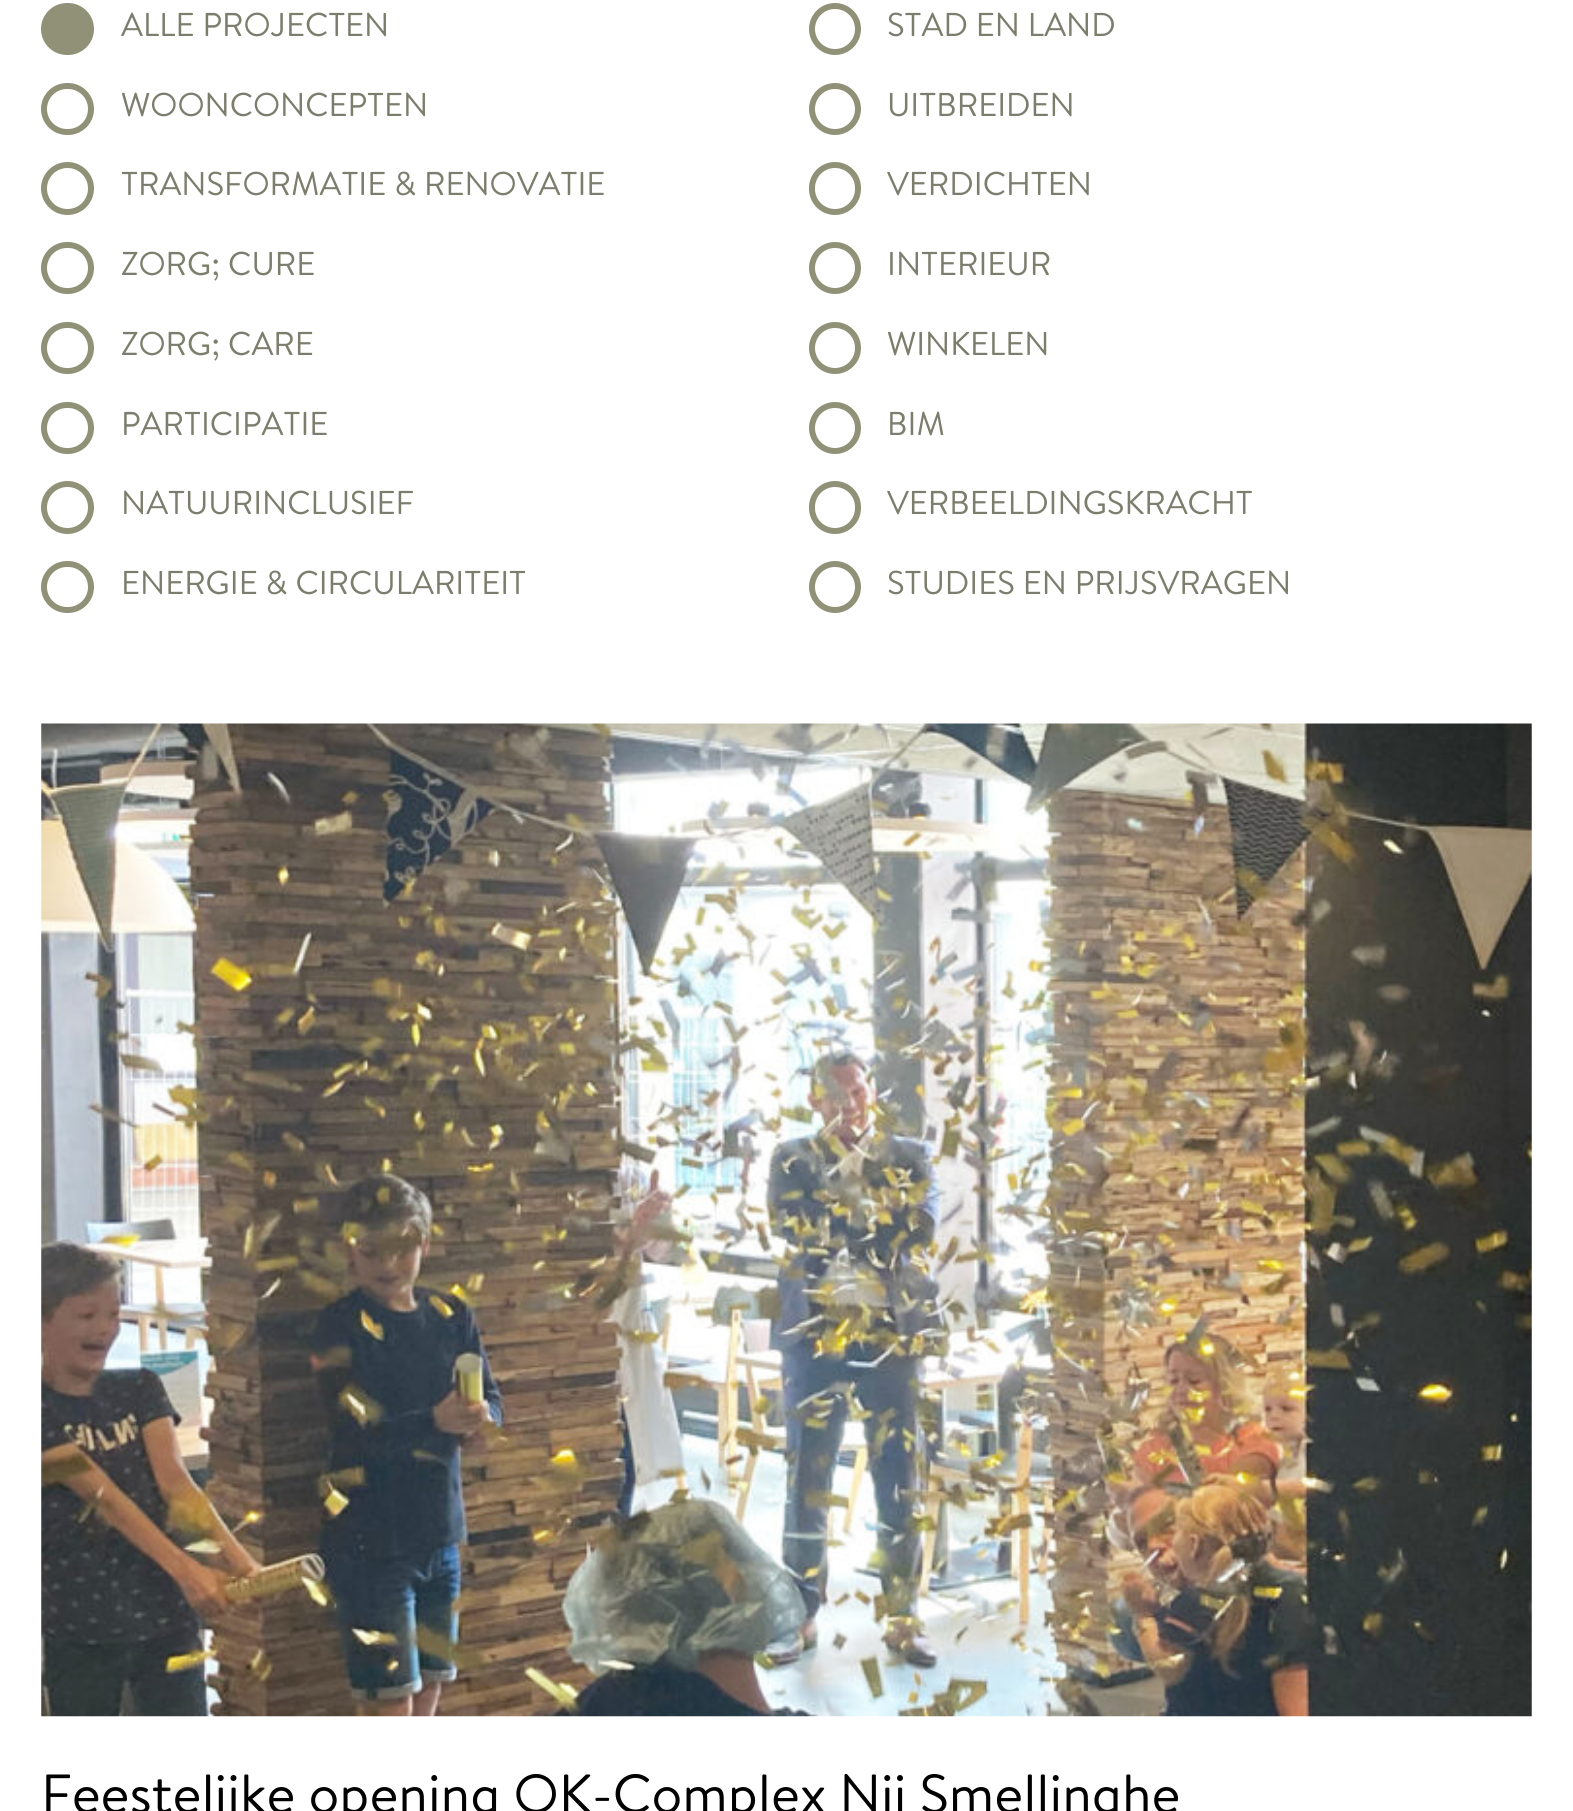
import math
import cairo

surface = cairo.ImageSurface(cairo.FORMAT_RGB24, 1573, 1811)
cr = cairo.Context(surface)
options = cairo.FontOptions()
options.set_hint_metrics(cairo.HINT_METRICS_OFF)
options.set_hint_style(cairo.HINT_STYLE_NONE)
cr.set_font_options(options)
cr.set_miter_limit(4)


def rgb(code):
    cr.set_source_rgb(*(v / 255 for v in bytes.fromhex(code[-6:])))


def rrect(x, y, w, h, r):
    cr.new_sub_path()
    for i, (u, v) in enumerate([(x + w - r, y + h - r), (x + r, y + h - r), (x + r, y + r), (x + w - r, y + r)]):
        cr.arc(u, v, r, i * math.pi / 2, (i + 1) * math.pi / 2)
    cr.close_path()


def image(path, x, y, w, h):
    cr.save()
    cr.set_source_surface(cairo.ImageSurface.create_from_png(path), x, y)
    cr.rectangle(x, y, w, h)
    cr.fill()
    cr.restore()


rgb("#ffffff")
cr.paint()
rgb("#919178")
rrect(44, 6, 47, 46, 23)
cr.fill_preserve()
cr.set_line_width(6)
cr.stroke()
cr.arc(835, 29, 23, 0, 2 * math.pi)
cr.stroke()
rrect(44, 86, 47, 46, 23)
cr.stroke()
cr.arc(835, 109, 23, 0, 2 * math.pi)
cr.stroke()
cr.arc(67.5, 188.5, 23.5, 0, 2 * math.pi)
cr.stroke()
rrect(812, 165, 46, 47, 23)
cr.stroke()
rrect(44, 245, 47, 46, 23)
cr.stroke()
cr.arc(835, 268, 23, 0, 2 * math.pi)
cr.stroke()
rrect(44, 325, 47, 46, 23)
cr.stroke()
cr.arc(835, 348, 23, 0, 2 * math.pi)
cr.stroke()
rrect(44, 405, 47, 46, 23)
cr.stroke()
cr.arc(835, 428, 23, 0, 2 * math.pi)
cr.stroke()
cr.arc(67.5, 507.5, 23.5, 0, 2 * math.pi)
cr.stroke()
rrect(812, 484, 46, 47, 23)
cr.stroke()
rrect(44, 564, 47, 46, 23)
cr.stroke()
cr.arc(835, 587, 23, 0, 2 * math.pi)
cr.stroke()
image("img/1.png", 41, 723, 1491, 994)
cr.select_font_face("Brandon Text")
cr.set_font_size(33)
rgb("#7d7d6e")
for x, y, s in [
    (121, 36, "ALLE PROJECTEN"),
    (887, 36, "STAD EN LAND"),
    (121, 116, "WOONCONCEPTEN"),
    (887, 116, "UITBREIDEN"),
    (121, 195, "TRANSFORMATIE & RENOVATIE"),
    (887, 195, "VERDICHTEN"),
    (121, 275, "ZORG; CURE"),
    (887, 275, "INTERIEUR"),
    (121, 355, "ZORG; CARE"),
    (887, 355, "WINKELEN"),
    (121, 435, "PARTICIPATIE"),
    (887, 435, "BIM"),
    (121, 514, "NATUURINCLUSIEF"),
    (887, 514, "VERBEELDINGSKRACHT"),
    (121, 594, "ENERGIE & CIRCULARITEIT"),
    (887, 594, "STUDIES EN PRIJSVRAGEN"),
]:
    cr.move_to(x, y)
    cr.show_text(s)
cr.set_font_size(55)
rgb("#000000")
cr.move_to(41, 1813)
cr.show_text("Feestelijke opening OK-Complex Nij Smellinghe")
surface.write_to_png("page.png")
